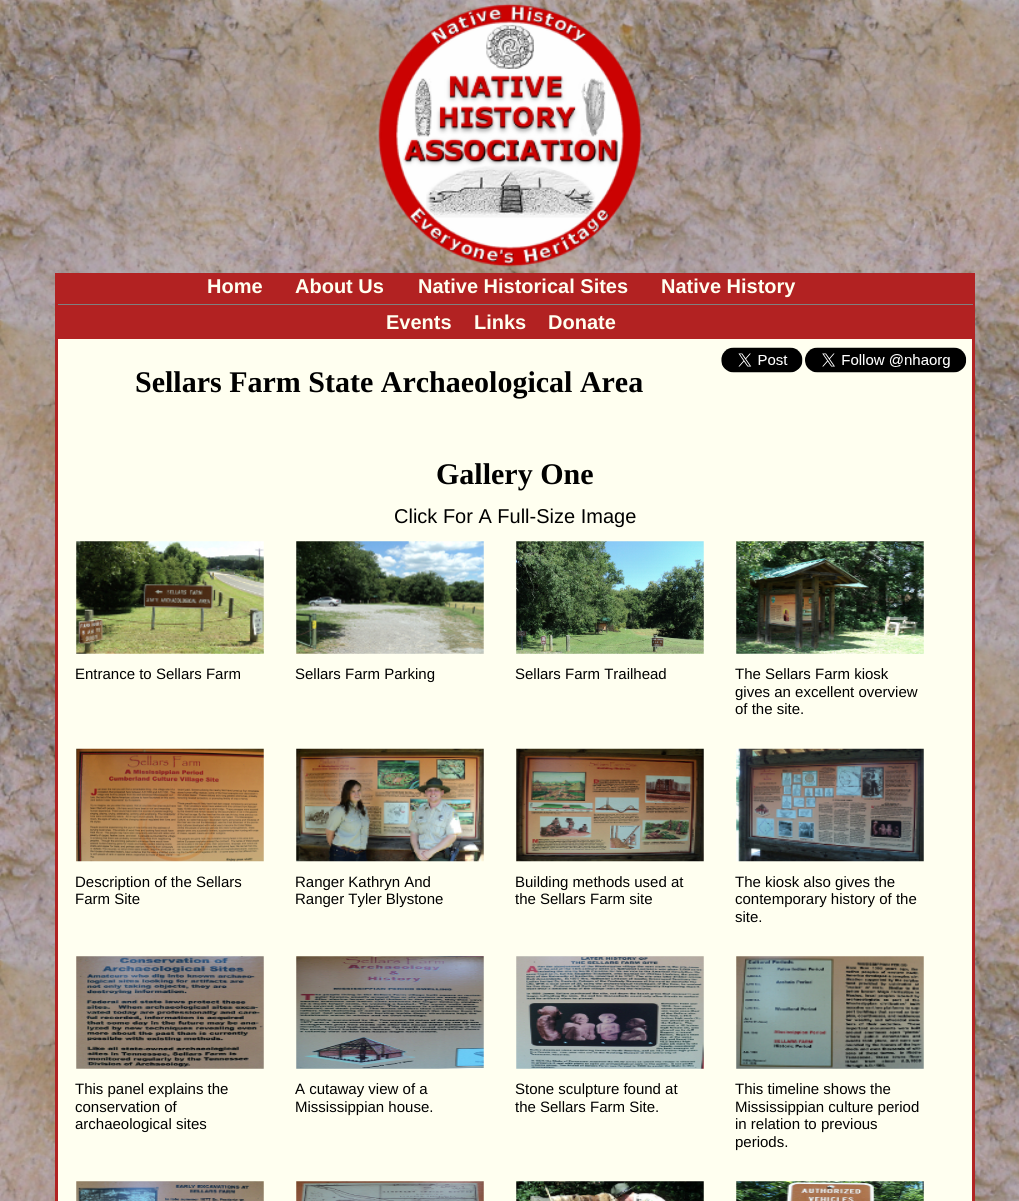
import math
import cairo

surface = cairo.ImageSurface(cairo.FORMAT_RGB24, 1019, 1201)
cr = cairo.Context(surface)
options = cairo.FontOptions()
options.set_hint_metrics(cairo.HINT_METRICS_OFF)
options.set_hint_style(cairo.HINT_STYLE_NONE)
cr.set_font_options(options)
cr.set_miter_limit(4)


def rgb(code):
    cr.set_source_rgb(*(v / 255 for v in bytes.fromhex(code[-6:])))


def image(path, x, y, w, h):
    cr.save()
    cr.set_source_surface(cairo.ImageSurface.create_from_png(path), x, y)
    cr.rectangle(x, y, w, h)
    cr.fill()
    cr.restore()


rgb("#ffffff")
cr.paint()
image("img/1.png", 0, 0, 1019, 1201)
image("img/2.png", 378, 3, 264, 264)
rgb("#b22222")
cr.rectangle(55, 273, 920, 63)
cr.fill()
rgb("#808080")
cr.rectangle(58, 304, 915, 1)
cr.fill()
rgb("#fffff0")
cr.rectangle(56.5, 337.5, 917, 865)
cr.fill_preserve()
rgb("#b22222")
cr.set_line_width(3)
cr.stroke()
image("img/3.png", 721, 347, 82, 26)
image("img/4.png", 805, 347, 162, 26)
image("img/5.png", 76, 541, 188, 113)
image("img/6.png", 296, 541, 188, 113)
image("img/7.png", 516, 541, 188, 113)
image("img/8.png", 736, 541, 188, 113)
image("img/9.png", 76, 748, 188, 114)
image("img/10.png", 296, 748, 188, 114)
image("img/11.png", 516, 748, 188, 114)
image("img/12.png", 736, 748, 188, 114)
image("img/13.png", 76, 956, 188, 113)
image("img/14.png", 296, 956, 188, 113)
image("img/15.png", 516, 956, 188, 113)
image("img/16.png", 736, 956, 188, 113)
image("img/17.png", 76, 1181, 188, 20)
image("img/18.png", 296, 1181, 188, 20)
image("img/19.png", 516, 1181, 188, 20)
image("img/20.png", 736, 1181, 188, 20)
cr.select_font_face("Liberation Sans", cairo.FONT_SLANT_NORMAL, cairo.FONT_WEIGHT_BOLD)
cr.set_font_size(20)
rgb("#fffff0")
for x, y, s in [
    (207, 293, "Home"),
    (295, 293, "About Us"),
    (418, 293, "Native Historical Sites"),
    (661, 293, "Native History"),
    (386, 329, "Events"),
    (474, 329, "Links"),
    (548, 329, "Donate"),
]:
    cr.move_to(x, y)
    cr.show_text(s)
cr.select_font_face("Liberation Serif", cairo.FONT_SLANT_NORMAL, cairo.FONT_WEIGHT_BOLD)
cr.set_font_size(30)
rgb("#000000")
cr.move_to(135, 392)
cr.show_text("Sellars Farm State Archaeological Area")
cr.move_to(436, 484)
cr.show_text("Gallery One")
cr.select_font_face("Liberation Sans")
cr.set_font_size(20)
cr.move_to(394, 523)
cr.show_text("Click For A Full-Size Image")
cr.set_font_size(15)
for x, y, s in [
    (75, 679, "Entrance to Sellars Farm"),
    (295, 679, "Sellars Farm Parking"),
    (515, 679, "Sellars Farm Trailhead"),
    (735, 679, "The Sellars Farm kiosk"),
    (735, 697, "gives an excellent overview"),
    (735, 714, "of the site."),
    (75, 887, "Description of the Sellars"),
    (75, 904, "Farm Site"),
    (295, 887, "Ranger Kathryn And"),
    (295, 904, "Ranger Tyler Blystone"),
    (515, 887, "Building methods used at"),
    (515, 904, "the Sellars Farm site"),
    (735, 887, "The kiosk also gives the"),
    (735, 904, "contemporary history of the"),
    (735, 922, "site."),
    (75, 1094, "This panel explains the"),
    (75, 1112, "conservation of"),
    (75, 1129, "archaeological sites"),
    (295, 1094, "A cutaway view of a"),
    (295, 1112, "Mississippian house."),
    (515, 1094, "Stone sculpture found at"),
    (515, 1112, "the Sellars Farm Site."),
    (735, 1094, "This timeline shows the"),
    (735, 1112, "Mississippian culture period"),
    (735, 1129, "in relation to previous"),
    (735, 1147, "periods."),
]:
    cr.move_to(x, y)
    cr.show_text(s)
surface.write_to_png("page.png")
